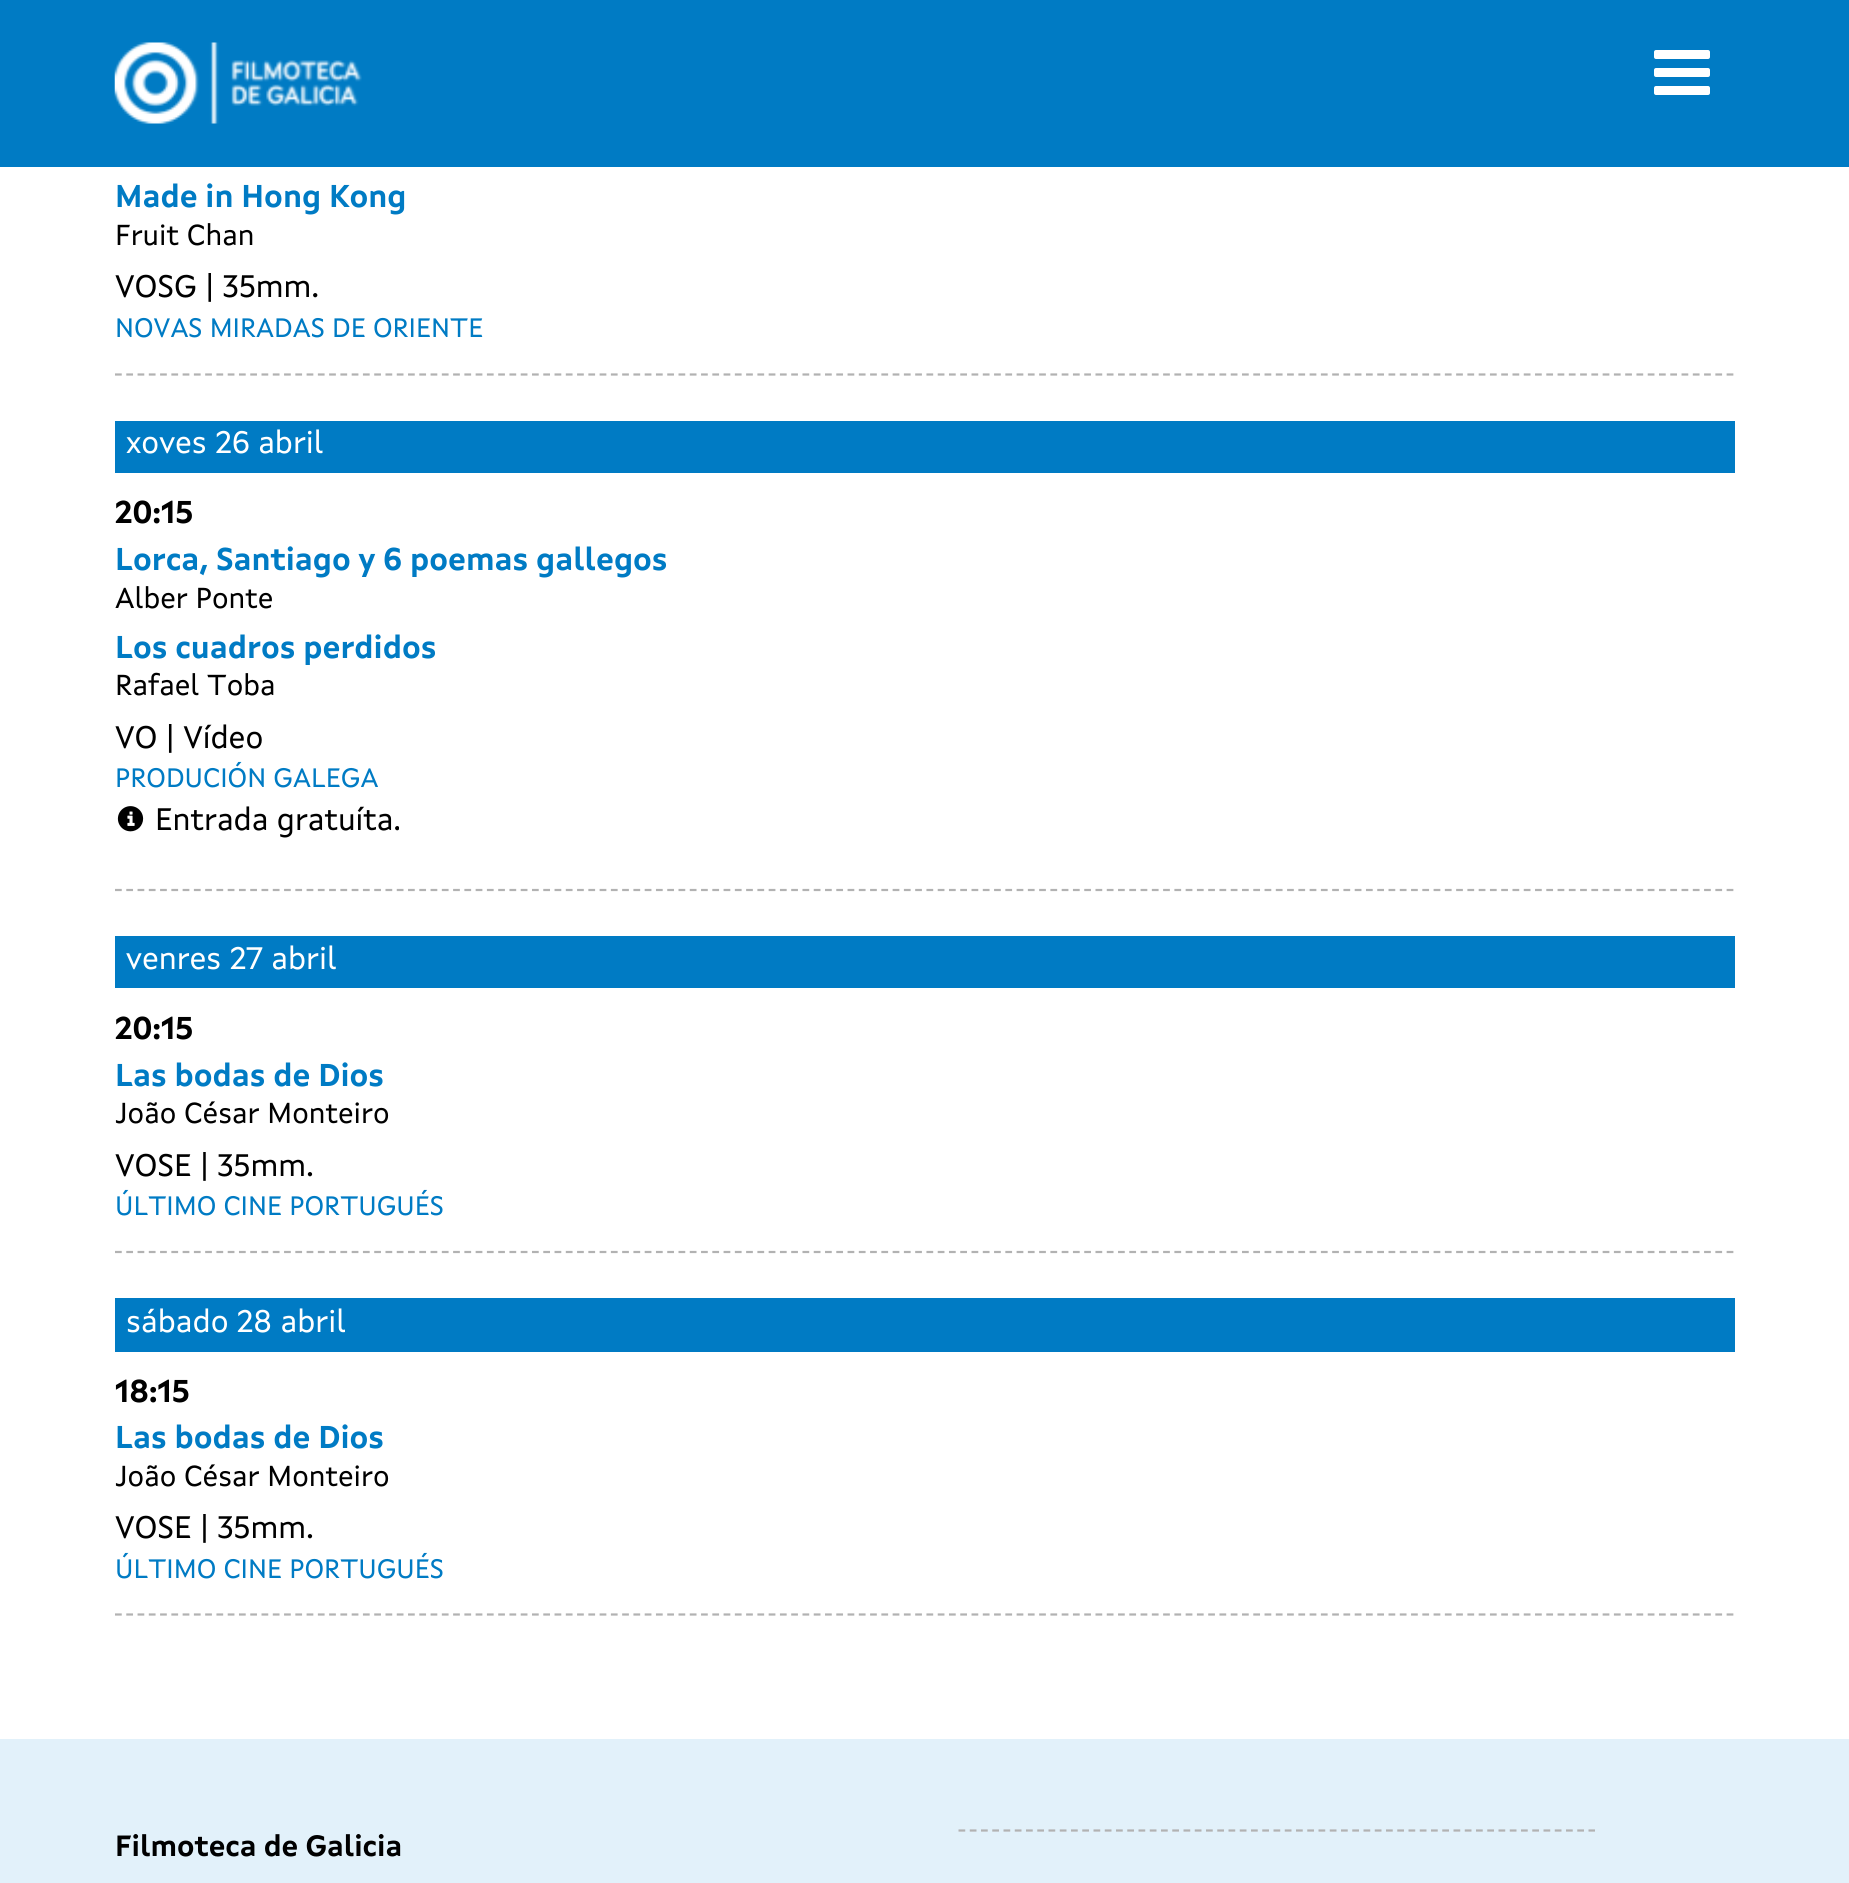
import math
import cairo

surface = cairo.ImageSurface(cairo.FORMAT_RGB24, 1849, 1883)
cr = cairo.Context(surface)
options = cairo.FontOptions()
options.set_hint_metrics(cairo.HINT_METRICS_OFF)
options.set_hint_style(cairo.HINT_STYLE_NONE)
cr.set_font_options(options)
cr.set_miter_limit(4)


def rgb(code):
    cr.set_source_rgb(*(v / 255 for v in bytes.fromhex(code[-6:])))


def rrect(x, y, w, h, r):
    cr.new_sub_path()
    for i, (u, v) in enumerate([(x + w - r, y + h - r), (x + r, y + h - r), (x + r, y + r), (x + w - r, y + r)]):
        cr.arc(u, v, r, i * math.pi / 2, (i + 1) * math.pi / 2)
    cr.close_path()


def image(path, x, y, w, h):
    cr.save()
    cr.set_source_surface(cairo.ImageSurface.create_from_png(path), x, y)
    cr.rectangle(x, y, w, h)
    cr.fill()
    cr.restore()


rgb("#ffffff")
cr.paint()
rgb("#007bc4")
cr.rectangle(0, 0, 1849, 167)
cr.fill()
image("img/1.png", 114, 42, 248, 82)
rgb("#ffffff")
rrect(1654, 50, 56, 9, 2)
cr.fill()
rrect(1654, 68, 56, 9, 2)
cr.fill()
rrect(1654, 86, 56, 9, 2)
cr.fill()
cr.new_path()
cr.move_to(115, 374.5)
cr.line_to(1735, 374.5)
rgb("#b2b2b2")
cr.set_line_width(2.2)
cr.set_dash([6.75, 4.52])
cr.stroke()
rgb("#007bc4")
cr.rectangle(115, 421, 1620, 52)
cr.fill()
cr.new_path()
cr.move_to(115, 890)
cr.line_to(1735, 890)
rgb("#b2b2b2")
cr.stroke()
image("img/2.png", 117, 806, 27, 26)
rgb("#007bc4")
cr.rectangle(115, 936, 1620, 52)
cr.fill()
cr.new_path()
cr.move_to(115, 1252)
cr.line_to(1735, 1252)
rgb("#b2b2b2")
cr.stroke()
rgb("#007bc4")
cr.rectangle(115, 1298, 1620, 54)
cr.fill()
cr.new_path()
cr.move_to(115, 1614.5)
cr.line_to(1735, 1614.5)
rgb("#b2b2b2")
cr.stroke()
rgb("#e2f1fa")
cr.rectangle(0, 1739, 1849, 144)
cr.fill()
cr.new_path()
cr.move_to(958.5, 1830.5)
cr.line_to(1595, 1830.5)
rgb("#b2b2b2")
cr.set_dash([6.75, 4.5])
cr.stroke()
cr.select_font_face("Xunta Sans", cairo.FONT_SLANT_NORMAL, cairo.FONT_WEIGHT_BOLD)
cr.set_font_size(31.5)
rgb("#007bc4")
cr.move_to(115, 207)
cr.show_text("Made in Hong Kong")
cr.select_font_face("Xunta Sans")
cr.set_font_size(29.25)
rgb("#000000")
cr.move_to(115, 245)
cr.show_text("Fruit Chan")
cr.set_font_size(31.5)
cr.move_to(115, 297)
cr.show_text("VOSG | 35mm.")
cr.set_font_size(27)
rgb("#007bc4")
cr.move_to(115, 337)
cr.show_text("NOVAS MIRADAS DE ORIENTE")
cr.set_font_size(31.5)
rgb("#ffffff")
cr.move_to(126, 453)
cr.show_text("xoves 26 abril")
cr.select_font_face("Xunta Sans", cairo.FONT_SLANT_NORMAL, cairo.FONT_WEIGHT_BOLD)
rgb("#000000")
cr.move_to(115, 523)
cr.show_text("20:15")
rgb("#007bc4")
cr.move_to(115, 570)
cr.show_text("Lorca, Santiago y 6 poemas gallegos")
cr.select_font_face("Xunta Sans")
cr.set_font_size(29.25)
rgb("#000000")
cr.move_to(115, 608)
cr.show_text("Alber Ponte")
cr.select_font_face("Xunta Sans", cairo.FONT_SLANT_NORMAL, cairo.FONT_WEIGHT_BOLD)
cr.set_font_size(31.5)
rgb("#007bc4")
cr.move_to(115, 658)
cr.show_text("Los cuadros perdidos")
cr.select_font_face("Xunta Sans")
cr.set_font_size(29.25)
rgb("#000000")
cr.move_to(115, 695)
cr.show_text("Rafael Toba")
cr.set_font_size(31.5)
cr.move_to(115, 748)
cr.show_text("VO | Vídeo")
cr.set_font_size(27)
rgb("#007bc4")
cr.move_to(115, 787)
cr.show_text("PRODUCIÓN GALEGA")
cr.set_font_size(31.5)
rgb("#000000")
cr.move_to(155, 830)
cr.show_text("Entrada gratuíta.")
rgb("#ffffff")
cr.move_to(126, 969)
cr.show_text("venres 27 abril")
cr.select_font_face("Xunta Sans", cairo.FONT_SLANT_NORMAL, cairo.FONT_WEIGHT_BOLD)
rgb("#000000")
cr.move_to(115, 1039)
cr.show_text("20:15")
rgb("#007bc4")
cr.move_to(115, 1086)
cr.show_text("Las bodas de Dios")
cr.select_font_face("Xunta Sans")
cr.set_font_size(29.25)
rgb("#000000")
cr.move_to(115, 1123)
cr.show_text("João César Monteiro")
cr.set_font_size(31.5)
cr.move_to(115, 1176)
cr.show_text("VOSE | 35mm.")
cr.set_font_size(27)
rgb("#007bc4")
cr.move_to(115, 1215)
cr.show_text("ÚLTIMO CINE PORTUGUÉS")
cr.set_font_size(31.5)
rgb("#ffffff")
cr.move_to(126, 1332)
cr.show_text("sábado 28 abril")
cr.select_font_face("Xunta Sans", cairo.FONT_SLANT_NORMAL, cairo.FONT_WEIGHT_BOLD)
rgb("#000000")
cr.move_to(115, 1402)
cr.show_text("18:15")
rgb("#007bc4")
cr.move_to(115, 1448)
cr.show_text("Las bodas de Dios")
cr.select_font_face("Xunta Sans")
cr.set_font_size(29.25)
rgb("#000000")
cr.move_to(115, 1486)
cr.show_text("João César Monteiro")
cr.set_font_size(31.5)
cr.move_to(115, 1538)
cr.show_text("VOSE | 35mm.")
cr.set_font_size(27)
rgb("#007bc4")
cr.move_to(115, 1578)
cr.show_text("ÚLTIMO CINE PORTUGUÉS")
cr.select_font_face("Xunta Sans", cairo.FONT_SLANT_NORMAL, cairo.FONT_WEIGHT_BOLD)
cr.set_font_size(29.25)
rgb("#000000")
cr.move_to(115, 1856)
cr.show_text("Filmoteca de Galicia")
surface.write_to_png("page.png")
